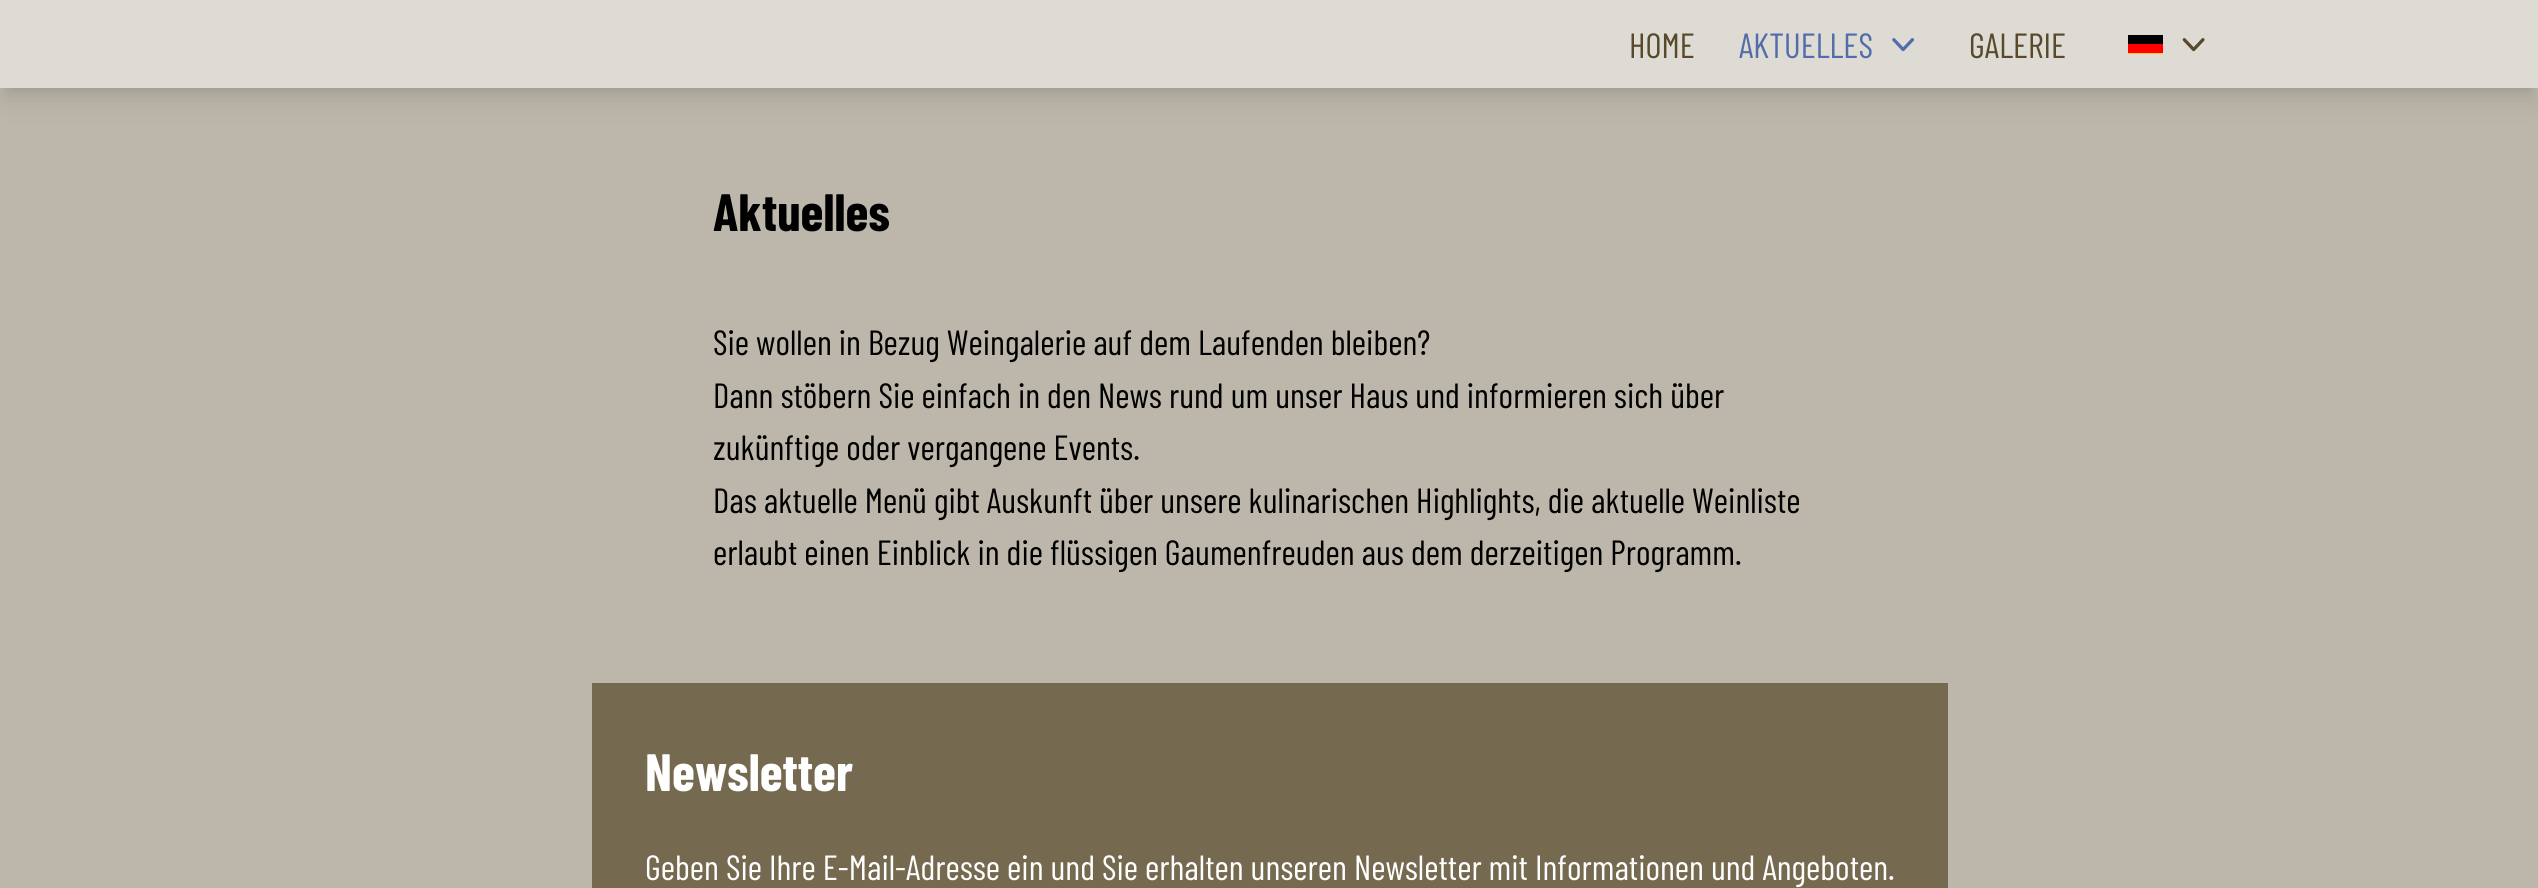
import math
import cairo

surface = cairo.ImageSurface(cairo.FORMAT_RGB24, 2538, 888)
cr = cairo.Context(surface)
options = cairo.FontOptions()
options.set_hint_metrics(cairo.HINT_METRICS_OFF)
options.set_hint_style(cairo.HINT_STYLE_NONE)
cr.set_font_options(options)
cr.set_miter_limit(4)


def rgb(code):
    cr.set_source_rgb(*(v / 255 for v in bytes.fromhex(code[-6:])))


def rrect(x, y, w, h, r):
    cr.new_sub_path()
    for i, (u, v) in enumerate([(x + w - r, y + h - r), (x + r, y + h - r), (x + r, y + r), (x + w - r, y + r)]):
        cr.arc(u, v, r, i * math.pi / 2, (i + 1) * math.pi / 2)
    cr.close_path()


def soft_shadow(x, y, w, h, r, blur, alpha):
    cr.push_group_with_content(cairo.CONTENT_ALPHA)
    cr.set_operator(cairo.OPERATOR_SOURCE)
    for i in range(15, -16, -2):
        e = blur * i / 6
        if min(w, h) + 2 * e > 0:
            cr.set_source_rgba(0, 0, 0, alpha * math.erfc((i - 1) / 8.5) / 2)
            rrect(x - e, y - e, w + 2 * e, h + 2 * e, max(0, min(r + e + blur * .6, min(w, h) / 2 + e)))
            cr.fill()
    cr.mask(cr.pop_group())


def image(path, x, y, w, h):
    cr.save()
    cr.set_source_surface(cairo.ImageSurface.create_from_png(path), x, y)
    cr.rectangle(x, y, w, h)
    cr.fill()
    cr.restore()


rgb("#bcb7aa")
cr.paint()
rgb("#000000")
soft_shadow(7, 14, 2525, 74, 0, 5, 0.1)
soft_shadow(5, 23, 2529, 77, 0, 13, 0.1)
rgb("#dedbd5")
cr.rectangle(0, 0, 2538, 88)
cr.fill()
image("img/1.png", 1892, 38, 23, 14)
for x, y, w, h, color in [
    (2128, 53, 35, 1, "#ffcc00"),
    (2128, 35, 35, 9, "#000001"),
    (2128, 44, 35, 9, "#ff0000"),
]:
    rgb(color)
    cr.rectangle(x, y, w, h)
    cr.fill()
image("img/2.png", 2182, 38, 23, 14)
rgb("#756a50")
cr.rectangle(592, 683, 1356, 205)
cr.fill()
cr.select_font_face("Barlow Condensed")
cr.set_font_size(35)
rgb("#57492a")
cr.move_to(1629, 58)
cr.show_text("HOME")
rgb("#526da9")
cr.move_to(1739, 58)
cr.show_text("AKTUELLES")
rgb("#57492a")
cr.move_to(1969, 58)
cr.show_text("GALERIE")
cr.select_font_face("Barlow Condensed", cairo.FONT_SLANT_NORMAL, cairo.FONT_WEIGHT_BOLD)
cr.set_font_size(52.5)
rgb("#000000")
cr.move_to(713, 231)
cr.show_text("Aktuelles")
cr.select_font_face("Barlow Condensed")
cr.set_font_size(35)
for x, y, s in [
    (713, 355, "Sie wollen in Bezug Weingalerie auf dem Laufenden bleiben?"),
    (713, 408, "Dann stöbern Sie einfach in den News rund um unser Haus und informieren sich über"),
    (713, 460, "zukünftige oder vergangene Events."),
    (713, 513, "Das aktuelle Menü gibt Auskunft über unsere kulinarischen Highlights, die aktuelle Weinliste"),
    (713, 565, "erlaubt einen Einblick in die flüssigen Gaumenfreuden aus dem derzeitigen Programm."),
]:
    cr.move_to(x, y)
    cr.show_text(s)
cr.select_font_face("Barlow Condensed", cairo.FONT_SLANT_NORMAL, cairo.FONT_WEIGHT_BOLD)
cr.set_font_size(52.5)
rgb("#ffffff")
cr.move_to(645, 791)
cr.show_text("Newsletter")
cr.select_font_face("Barlow Condensed")
cr.set_font_size(35)
cr.move_to(645, 880)
cr.show_text("Geben Sie Ihre E-Mail-Adresse ein und Sie erhalten unseren Newsletter mit Informationen und Angeboten.")
surface.write_to_png("page.png")
